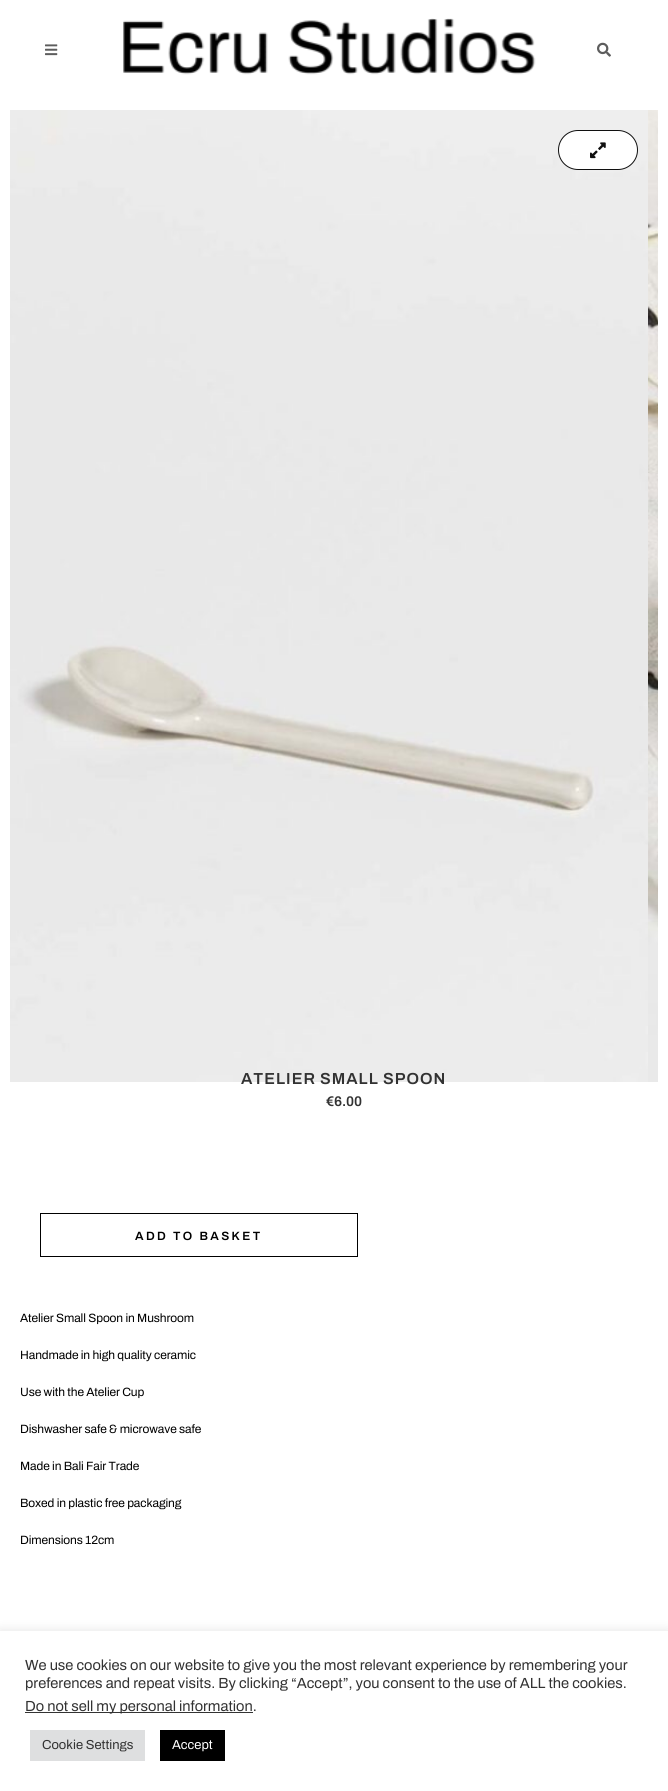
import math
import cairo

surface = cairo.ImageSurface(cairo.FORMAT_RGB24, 668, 1791)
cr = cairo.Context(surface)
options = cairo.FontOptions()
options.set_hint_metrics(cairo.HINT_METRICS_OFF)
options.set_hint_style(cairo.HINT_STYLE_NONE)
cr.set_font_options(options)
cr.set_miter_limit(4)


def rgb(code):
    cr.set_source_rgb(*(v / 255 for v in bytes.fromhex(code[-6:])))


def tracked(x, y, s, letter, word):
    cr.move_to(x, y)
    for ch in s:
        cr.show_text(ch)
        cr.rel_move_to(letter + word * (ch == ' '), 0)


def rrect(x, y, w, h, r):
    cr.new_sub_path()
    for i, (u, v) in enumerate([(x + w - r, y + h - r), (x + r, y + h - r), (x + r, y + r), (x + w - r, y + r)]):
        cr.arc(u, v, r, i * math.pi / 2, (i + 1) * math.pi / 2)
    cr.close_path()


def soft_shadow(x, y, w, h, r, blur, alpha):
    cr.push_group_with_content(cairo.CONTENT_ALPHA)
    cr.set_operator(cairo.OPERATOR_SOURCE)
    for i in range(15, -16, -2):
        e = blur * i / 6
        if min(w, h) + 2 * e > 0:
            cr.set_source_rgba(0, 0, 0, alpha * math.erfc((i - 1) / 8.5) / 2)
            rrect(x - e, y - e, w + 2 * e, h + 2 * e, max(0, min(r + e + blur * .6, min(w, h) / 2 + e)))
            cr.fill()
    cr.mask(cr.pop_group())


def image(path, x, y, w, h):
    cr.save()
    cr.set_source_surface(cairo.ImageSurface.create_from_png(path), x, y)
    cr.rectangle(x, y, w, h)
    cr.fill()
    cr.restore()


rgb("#ffffff")
cr.paint()
image("img/1.png", 45, 44, 13, 12)
image("img/2.png", 123, 18, 413, 57)
image("img/3.png", 597, 42, 14, 15)
image("img/4.png", 10, 110, 638, 972)
image("img/5.png", 648, 110, 10, 972)
rgb("#ffffff")
rrect(558.5, 130.5, 79, 39, 19.5)
cr.fill_preserve()
rgb("#101010")
cr.set_line_width(1)
cr.stroke()
image("img/6.png", 590, 142, 16, 17)
cr.rectangle(40.5, 1213.5, 317, 43)
rgb("#000000")
cr.stroke()
rgb("#acabab")
soft_shadow(0, 1630, 668, 160, 0, 5, 0.3)
for x, y, w, h, color in [
    (0, 1631, 668, 160, "#ffffff"),
    (25, 1712, 228, 1, "#333333"),
    (30, 1730, 115, 31, "#dedfe0"),
    (160, 1730, 65, 31, "#000000"),
]:
    rgb(color)
    cr.rectangle(x, y, w, h)
    cr.fill()
cr.select_font_face("Archivo SemiBold")
cr.set_font_size(16)
rgb("#323232")
tracked(241, 1084, "ATELIER SMALL SPOON", 1, 0)
cr.set_font_size(14)
tracked(326, 1106, "€6.00", -0.1, 0)
cr.set_font_size(12)
rgb("#000000")
tracked(135, 1240, "ADD TO BASKET", 2.4, 0)
cr.select_font_face("Archivo")
for x, y, s in [
    (20, 1322, "Atelier Small Spoon in Mushroom"),
    (20, 1359, "Handmade in high quality ceramic"),
    (20, 1396, "Use with the Atelier Cup"),
    (20, 1433, "Dishwasher safe & microwave safe"),
    (20, 1470, "Made in Bali Fair Trade"),
    (20, 1507, "Boxed in plastic free packaging"),
    (20, 1544, "Dimensions 12cm"),
]:
    tracked(x, y, s, -0.1, 0)
cr.set_font_size(14.65)
rgb("#323232")
for x, y, s in [
    (25, 1670, "We use cookies on our website to give you the most relevant experience by remembering your"),
    (25, 1688, "preferences and repeat visits. By clicking “Accept”, you consent to the use of ALL the cookies."),
    (25, 1711, "Do not sell my personal information."),
]:
    cr.move_to(x, y)
    cr.show_text(s)
cr.set_font_size(13)
cr.move_to(42, 1749)
cr.show_text("Cookie Settings")
rgb("#ffffff")
cr.move_to(172, 1749)
cr.show_text("Accept")
surface.write_to_png("page.png")
